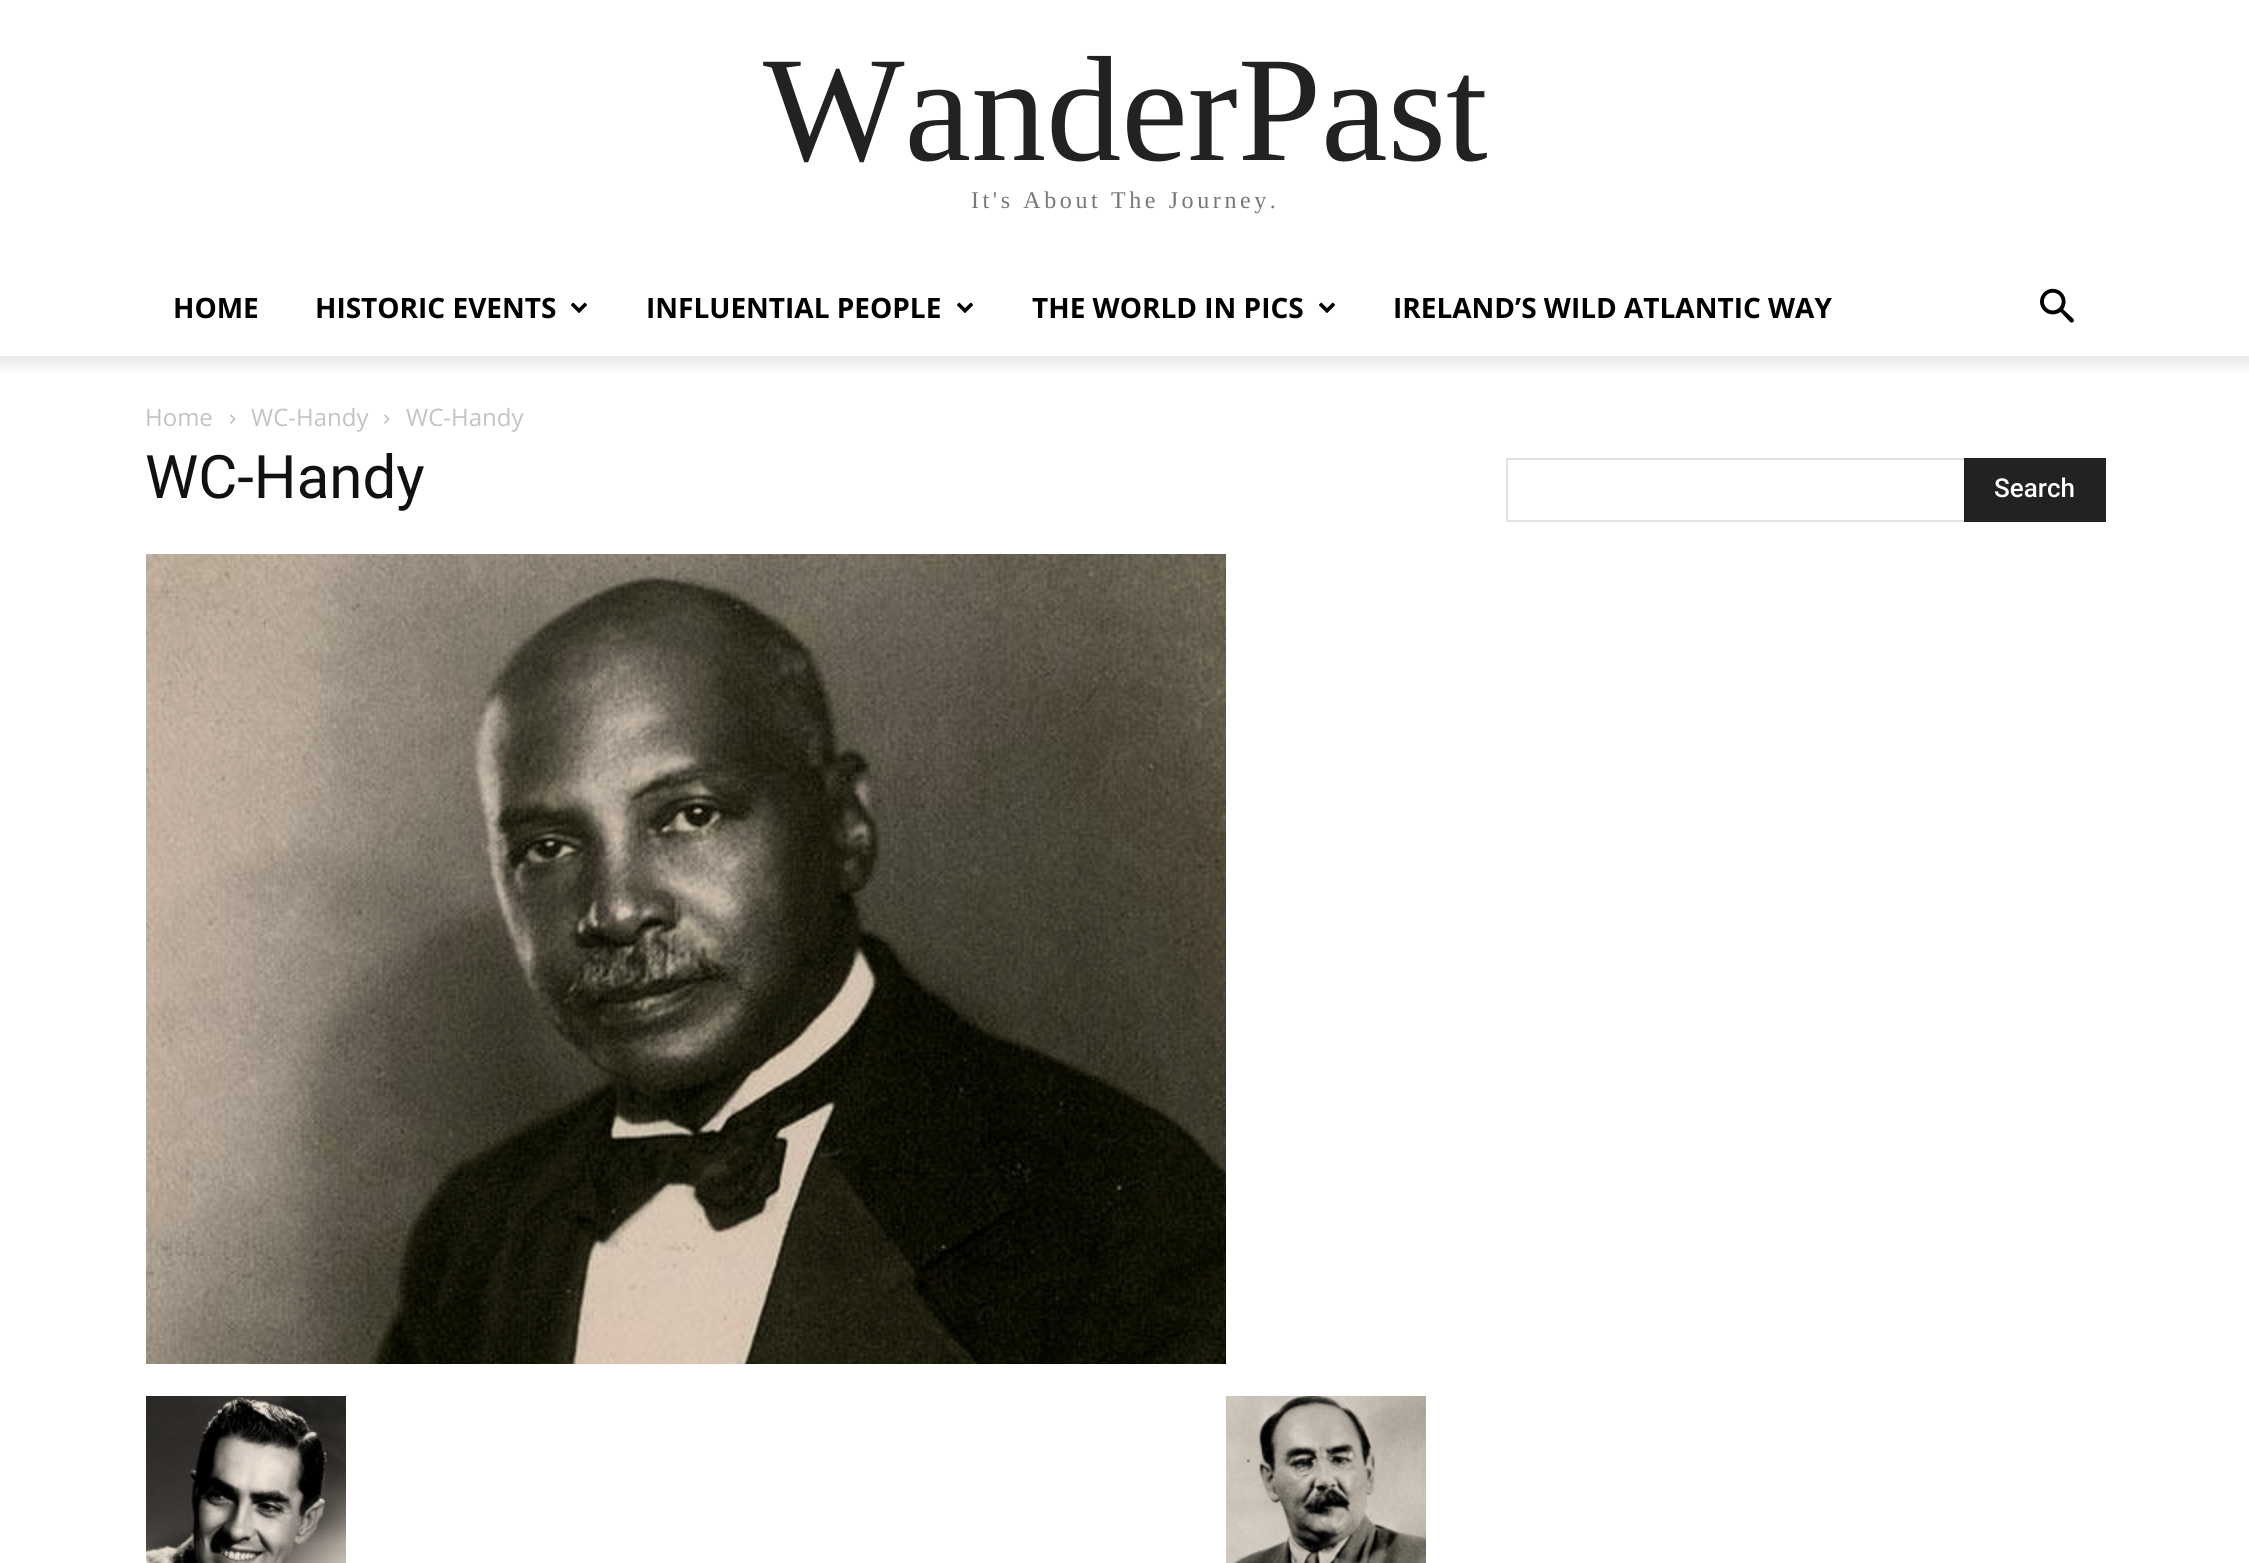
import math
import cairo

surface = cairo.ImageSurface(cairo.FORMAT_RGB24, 2249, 1563)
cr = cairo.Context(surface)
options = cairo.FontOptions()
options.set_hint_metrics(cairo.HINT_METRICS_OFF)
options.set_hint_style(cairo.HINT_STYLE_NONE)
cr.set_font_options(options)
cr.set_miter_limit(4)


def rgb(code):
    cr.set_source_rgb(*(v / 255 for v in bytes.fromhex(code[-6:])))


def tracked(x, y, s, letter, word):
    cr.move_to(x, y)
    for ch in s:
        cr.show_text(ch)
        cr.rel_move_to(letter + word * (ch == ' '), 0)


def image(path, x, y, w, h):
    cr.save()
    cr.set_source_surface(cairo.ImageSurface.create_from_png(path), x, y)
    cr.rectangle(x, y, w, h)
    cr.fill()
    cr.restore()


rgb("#ffffff")
cr.paint()
image("img/1.png", 571, 302, 16, 11)
image("img/1.png", 957, 302, 16, 11)
image("img/1.png", 1319, 302, 16, 11)
image("img/2.png", 2040, 288, 34, 35)
image("img/3.png", 0, 356, 2249, 17)
image("img/4.png", 230, 414, 6, 10)
image("img/4.png", 384, 414, 6, 10)
image("img/5.png", 146, 554, 1080, 810)
image("img/6.png", 146, 1396, 200, 167)
image("img/7.png", 1226, 1396, 200, 167)
for x, y, w, h, color in [
    (1506, 458, 458, 2, "#e1e1e1"),
    (1506, 520, 458, 2, "#e1e1e1"),
    (1506, 458, 2, 64, "#e1e1e1"),
    (1964, 458, 142, 64, "#222222"),
]:
    rgb(color)
    cr.rectangle(x, y, w, h)
    cr.fill()
cr.select_font_face("Liberation Serif")
cr.set_font_size(150)
cr.move_to(763, 160)
cr.show_text("WanderPast")
cr.set_font_size(24)
rgb("#777777")
tracked(971, 208, "It's About The Journey.", 3.6, 0)
cr.select_font_face("Open Sans", cairo.FONT_SLANT_NORMAL, cairo.FONT_WEIGHT_BOLD)
cr.set_font_size(28)
rgb("#000000")
for x, y, s in [
    (173, 318, "HOME"),
    (315, 318, "HISTORIC EVENTS"),
    (646, 318, "INFLUENTIAL PEOPLE"),
    (1032, 318, "THE WORLD IN PICS"),
    (1393, 318, "IRELAND’S WILD ATLANTIC WAY"),
]:
    cr.move_to(x, y)
    cr.show_text(s)
cr.select_font_face("Open Sans")
cr.set_font_size(24)
rgb("#c3c3c3")
for x, y, s in [
    (145, 426, "Home"),
    (251, 426, "WC-Handy"),
    (406, 426, "WC-Handy"),
]:
    cr.move_to(x, y)
    cr.show_text(s)
cr.select_font_face("Roboto")
cr.set_font_size(60)
rgb("#111111")
cr.move_to(145, 498)
cr.show_text("WC-Handy")
cr.select_font_face("Roboto Medium")
cr.set_font_size(26)
rgb("#ffffff")
cr.move_to(1994, 497)
cr.show_text("Search")
surface.write_to_png("page.png")
